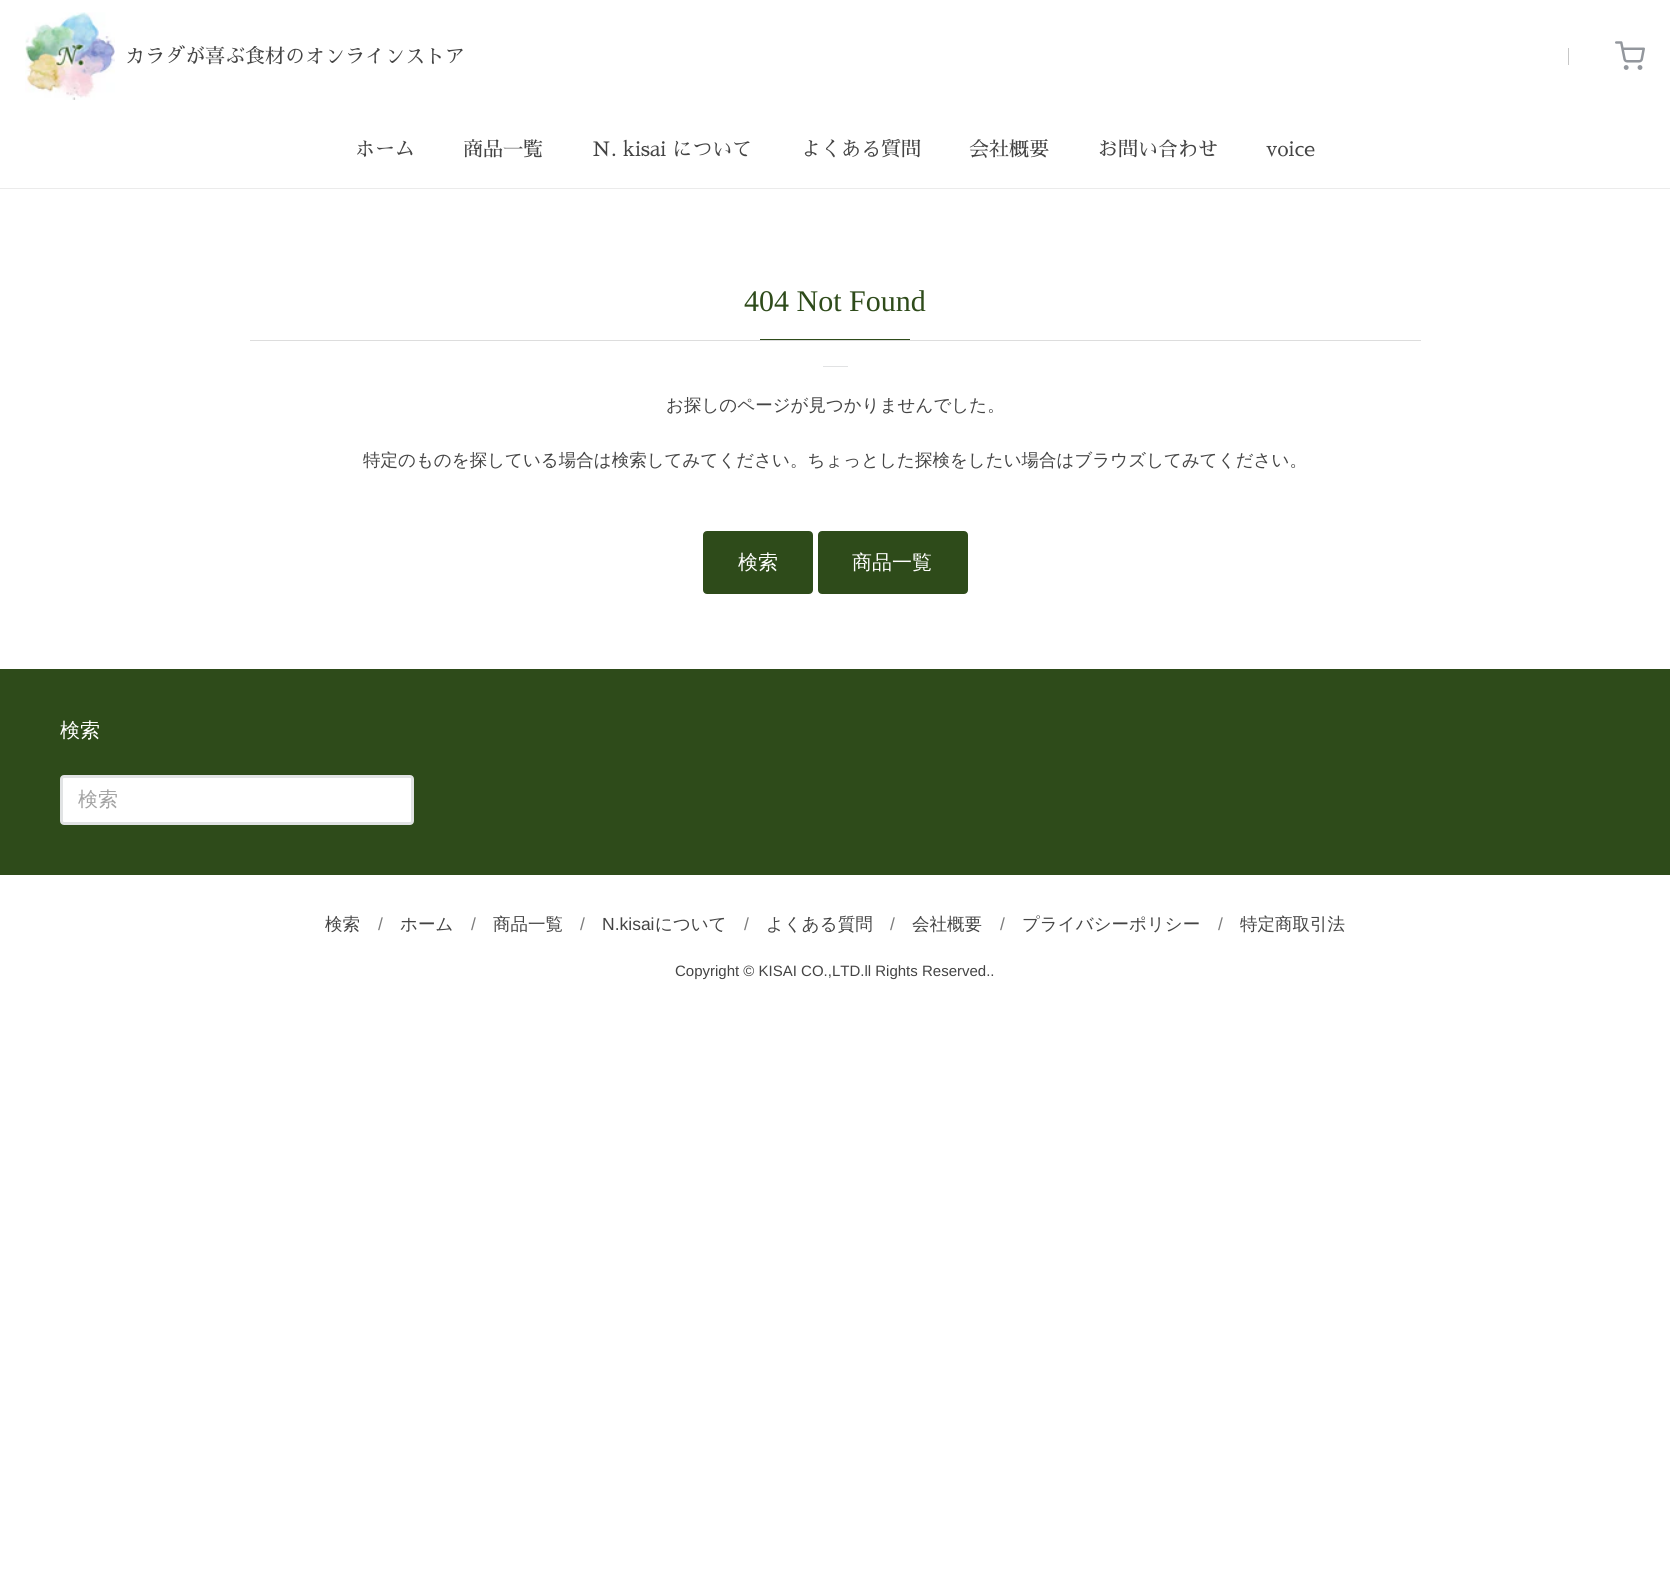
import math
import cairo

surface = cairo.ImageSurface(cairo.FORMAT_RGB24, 1670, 1583)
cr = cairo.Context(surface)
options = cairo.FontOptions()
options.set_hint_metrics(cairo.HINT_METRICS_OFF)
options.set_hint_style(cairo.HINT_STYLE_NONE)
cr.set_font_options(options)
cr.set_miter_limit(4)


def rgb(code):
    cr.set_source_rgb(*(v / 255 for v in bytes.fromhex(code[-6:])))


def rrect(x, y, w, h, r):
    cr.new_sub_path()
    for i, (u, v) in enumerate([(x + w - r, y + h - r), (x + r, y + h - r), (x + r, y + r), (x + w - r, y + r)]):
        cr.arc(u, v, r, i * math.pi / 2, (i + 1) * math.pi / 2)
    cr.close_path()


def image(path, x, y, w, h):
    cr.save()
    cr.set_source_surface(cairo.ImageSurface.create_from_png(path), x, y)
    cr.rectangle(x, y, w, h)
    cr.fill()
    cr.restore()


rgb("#ffffff")
cr.paint()
rgb("#ebebeb")
cr.rectangle(0, 188, 1670, 1)
cr.fill()
image("img/1.png", 25, 12, 90, 88)
rgb("#c7c7c7")
cr.rectangle(1568, 48, 1, 17)
cr.fill()
image("img/2.png", 1615, 41, 30, 29)
for x, y, w, h, color in [
    (250, 340, 1171, 1, "#dddddd"),
    (760, 339, 150, 1, "#2e4b1a"),
    (823, 366, 25, 1, "#e1e2e3"),
]:
    rgb(color)
    cr.rectangle(x, y, w, h)
    cr.fill()
rgb("#2e4b1a")
rrect(704.5, 532.5, 107, 60, 2.5)
cr.fill_preserve()
cr.set_line_width(3)
cr.stroke()
rrect(819.5, 532.5, 147, 60, 2.5)
cr.fill_preserve()
cr.stroke()
cr.rectangle(0, 669, 1670, 206)
cr.fill()
rgb("#ffffff")
rrect(61.5, 776.5, 351, 47, 2.5)
cr.fill_preserve()
rgb("#e1e3e4")
cr.stroke()
cr.select_font_face("Sawarabi Mincho")
cr.set_font_size(20)
rgb("#444444")
for x, y, s in [
    (125, 63, "カラダが喜ぶ食材のオンラインストア"),
    (355, 156, "ホーム"),
    (463, 156, "商品一覧"),
    (592, 156, "N. kisai について"),
    (801, 156, "よくある質問"),
    (969, 156, "会社概要"),
    (1098, 156, "お問い合わせ"),
    (1266, 156, "voice"),
]:
    cr.move_to(x, y)
    cr.show_text(s)
cr.select_font_face("Liberation Serif")
cr.set_font_size(30)
rgb("#2e4b1a")
cr.move_to(744, 311)
cr.show_text("404 Not Found")
cr.select_font_face("WenQuanYi Zen Hei Medium")
cr.set_font_size(17.5)
rgb("#444444")
cr.move_to(666, 411)
cr.show_text("お探しのページが見つかりませんでした。")
cr.move_to(363, 466)
cr.show_text("特定のものを探している場合は検索してみてください。ちょっとした探検をしたい場合はブラウズしてみてください。")
cr.set_font_size(20)
rgb("#ffffff")
for x, y, s in [
    (738, 569, "検索"),
    (852, 569, "商品一覧"),
    (60, 737, "検索"),
]:
    cr.move_to(x, y)
    cr.show_text(s)
rgb("#a2a2a2")
cr.move_to(78, 806)
cr.show_text("検索")
cr.set_font_size(17.5)
rgb("#444444")
cr.move_to(325, 930)
cr.show_text("検索")
cr.select_font_face("Liberation Sans")
rgb("#7c7c7c")
cr.move_to(378, 930)
cr.show_text("/")
cr.select_font_face("WenQuanYi Zen Hei Medium")
rgb("#444444")
cr.move_to(400, 930)
cr.show_text("ホーム")
cr.select_font_face("Liberation Sans")
rgb("#7c7c7c")
cr.move_to(471, 930)
cr.show_text("/")
cr.select_font_face("WenQuanYi Zen Hei Medium")
rgb("#444444")
cr.move_to(493, 930)
cr.show_text("商品一覧")
cr.select_font_face("Liberation Sans")
rgb("#7c7c7c")
cr.move_to(580, 930)
cr.show_text("/")
rgb("#444444")
cr.move_to(602, 930)
cr.show_text("N.kisai")
cr.select_font_face("WenQuanYi Zen Hei Medium")
cr.move_to(655, 930)
cr.show_text("について")
cr.select_font_face("Liberation Sans")
rgb("#7c7c7c")
cr.move_to(744, 930)
cr.show_text("/")
cr.select_font_face("WenQuanYi Zen Hei Medium")
rgb("#444444")
cr.move_to(766, 930)
cr.show_text("よくある質問")
cr.select_font_face("Liberation Sans")
rgb("#7c7c7c")
cr.move_to(890, 930)
cr.show_text("/")
cr.select_font_face("WenQuanYi Zen Hei Medium")
rgb("#444444")
cr.move_to(912, 930)
cr.show_text("会社概要")
cr.select_font_face("Liberation Sans")
rgb("#7c7c7c")
cr.move_to(1000, 930)
cr.show_text("/")
cr.select_font_face("WenQuanYi Zen Hei Medium")
rgb("#444444")
cr.move_to(1022, 930)
cr.show_text("プライバシーポリシー")
cr.select_font_face("Liberation Sans")
rgb("#7c7c7c")
cr.move_to(1218, 930)
cr.show_text("/")
cr.select_font_face("WenQuanYi Zen Hei Medium")
rgb("#444444")
cr.move_to(1240, 930)
cr.show_text("特定商取引法")
cr.select_font_face("Liberation Sans")
cr.set_font_size(15)
cr.move_to(675, 976)
cr.show_text("Copyright © KISAI CO.,LTD.ll Rights Reserved..")
surface.write_to_png("page.png")
